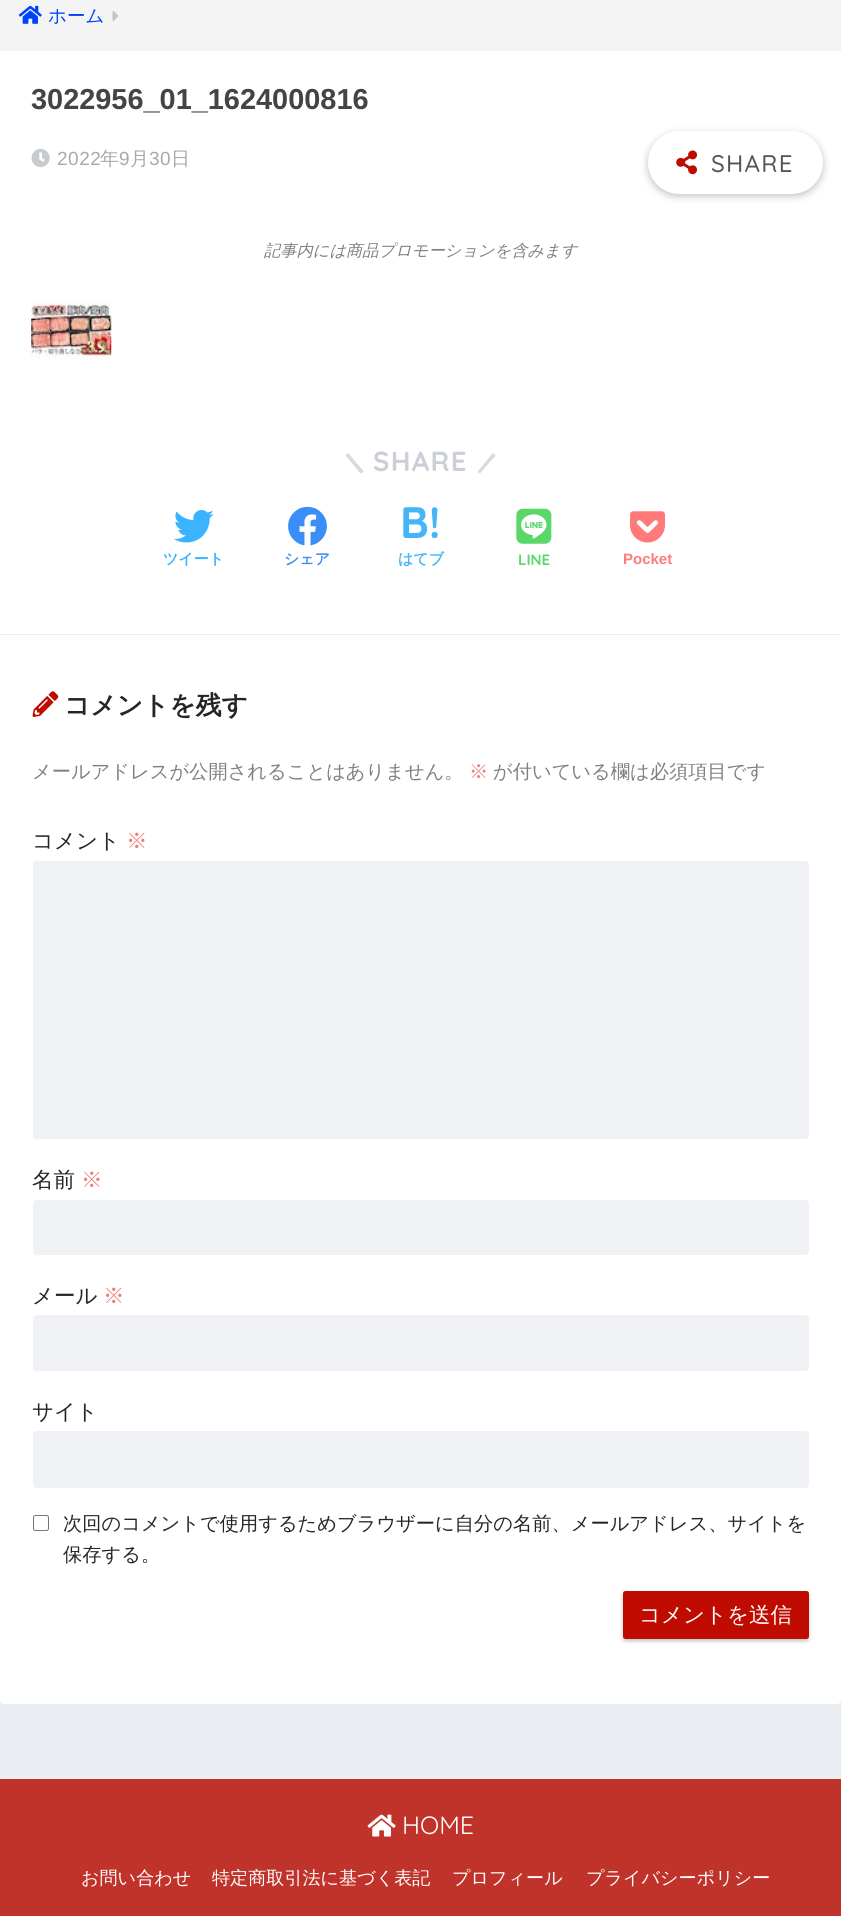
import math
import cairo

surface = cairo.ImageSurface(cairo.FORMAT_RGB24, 841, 1916)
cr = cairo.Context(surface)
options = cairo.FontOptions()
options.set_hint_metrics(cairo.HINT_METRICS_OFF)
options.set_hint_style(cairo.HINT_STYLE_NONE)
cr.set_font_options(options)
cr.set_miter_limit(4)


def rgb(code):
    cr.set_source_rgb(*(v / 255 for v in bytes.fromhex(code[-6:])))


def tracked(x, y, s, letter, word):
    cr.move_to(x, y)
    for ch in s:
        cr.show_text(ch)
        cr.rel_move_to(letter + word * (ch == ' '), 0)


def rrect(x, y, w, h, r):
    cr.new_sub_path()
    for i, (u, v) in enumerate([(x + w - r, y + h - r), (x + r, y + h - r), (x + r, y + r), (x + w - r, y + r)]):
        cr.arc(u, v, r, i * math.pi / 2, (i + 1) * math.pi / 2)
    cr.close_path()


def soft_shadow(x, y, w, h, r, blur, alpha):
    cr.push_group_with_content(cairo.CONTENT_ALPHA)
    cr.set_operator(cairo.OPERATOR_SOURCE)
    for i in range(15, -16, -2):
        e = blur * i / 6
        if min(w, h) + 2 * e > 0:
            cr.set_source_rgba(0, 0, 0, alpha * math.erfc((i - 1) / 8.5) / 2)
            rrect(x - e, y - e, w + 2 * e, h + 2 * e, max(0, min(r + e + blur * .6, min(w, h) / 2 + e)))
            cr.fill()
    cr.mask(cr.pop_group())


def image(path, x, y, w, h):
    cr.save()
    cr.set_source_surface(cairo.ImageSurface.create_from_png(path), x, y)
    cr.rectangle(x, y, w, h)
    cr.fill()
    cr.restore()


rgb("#eaedf2")
cr.paint()
rgb("#ffffff")
rrect(0, -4, 841, 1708, 4)
cr.fill()
rgb("#f4f4f4")
cr.rectangle(0, 0, 841, 51)
cr.fill()
image("img/1.png", 18, 5, 24, 19)
image("img/2.png", 112, 11, 6, 10)
image("img/3.png", 31, 148, 19, 19)
rgb("#000000")
soft_shadow(648, 134, 175, 62, 31, 4, 0.25)
rgb("#ffffff")
rrect(648, 131, 175, 63, 31.5)
cr.fill()
image("img/4.png", 676, 150, 21, 25)
image("img/5.png", 31, 300, 81, 60)
rgb("#d8dae1")
cr.new_path()
cr.move_to(349, 454)
cr.line_to(360.5, 467.5)
cr.curve_to(361.5, 468.5, 364.5, 471, 362.5, 473)
cr.curve_to(360.5, 474.5, 358.5, 471, 357.5, 470)
cr.line_to(346, 456)
cr.curve_to(345.5, 454, 348, 452.5, 349, 454)
cr.close_path()
cr.fill()
cr.new_path()
cr.move_to(478.5, 470.5)
cr.line_to(490, 456.5)
cr.curve_to(490.5, 455.5, 492.5, 452, 494.5, 454)
cr.curve_to(497, 455.5, 493.5, 458, 492.5, 459)
cr.line_to(480.5, 473)
cr.curve_to(479, 474, 477, 472, 478.5, 470.5)
cr.close_path()
cr.fill()
image("img/6.png", 174, 510, 40, 33)
image("img/7.png", 288, 506, 39, 40)
image("img/8.png", 516, 508, 36, 36)
image("img/9.png", 630, 511, 35, 32)
rgb("#eaedf2")
cr.rectangle(0, 634, 841, 1)
cr.fill()
image("img/10.png", 32, 691, 27, 26)
rgb("#eff1f5")
rrect(33, 861, 776, 278, 4)
cr.fill()
rrect(33, 1200, 776, 55, 4)
cr.fill()
rrect(33, 1315, 776, 56, 4)
cr.fill()
rrect(33, 1431, 776, 57, 4)
cr.fill()
rrect(33.5, 1515.5, 15, 15, 2)
rgb("#767676")
cr.set_line_width(1)
cr.stroke()
rgb("#000000")
soft_shadow(623, 1594, 186, 47, 2.5, 2, 0.25)
rgb("#bf0b00")
rrect(623, 1591, 186, 48, 2.5)
cr.fill()
rgb("#bf332b")
cr.rectangle(0, 1779, 841, 137)
cr.fill()
image("img/11.png", 367, 1814, 29, 23)
cr.select_font_face("WenQuanYi Zen Hei Medium")
cr.set_font_size(18.5)
rgb("#0043fc")
cr.move_to(48, 22)
cr.show_text("ホーム")
cr.select_font_face("Liberation Sans", cairo.FONT_SLANT_NORMAL, cairo.FONT_WEIGHT_BOLD)
cr.set_font_size(28.9)
rgb("#444444")
cr.move_to(31, 109)
cr.show_text("3022956_01_1624000816")
cr.select_font_face("Liberation Sans")
cr.set_font_size(19)
rgb("#a5aaaf")
tracked(57, 165, "2022", 0.5, 0)
cr.select_font_face("WenQuanYi Zen Hei Medium")
tracked(100, 165, "年", 0.5, 0)
cr.select_font_face("Liberation Sans")
tracked(119, 165, "9", 0.5, 0)
cr.select_font_face("WenQuanYi Zen Hei Medium")
tracked(130, 165, "月", 0.5, 0)
cr.select_font_face("Liberation Sans")
tracked(149, 165, "30", 0.5, 0)
cr.select_font_face("WenQuanYi Zen Hei Medium")
tracked(171, 165, "日", 0.5, 0)
cr.select_font_face("Quicksand Medium")
cr.set_font_size(24)
rgb("#555555")
tracked(711, 172, "SHARE", 1.25, 0)
cr.select_font_face("WenQuanYi Zen Hei Medium", cairo.FONT_SLANT_ITALIC)
cr.set_font_size(16.25)
rgb("#808080")
cr.move_to(264, 256)
cr.show_text("記事内には商品プロモーションを含みます")
cr.select_font_face("Quicksand", cairo.FONT_SLANT_NORMAL, cairo.FONT_WEIGHT_BOLD)
cr.set_font_size(27.5)
rgb("#cccfd7")
tracked(373, 471, "SHARE", 1.25, 0)
cr.select_font_face("WenQuanYi Zen Hei", cairo.FONT_SLANT_NORMAL, cairo.FONT_WEIGHT_BOLD)
cr.set_font_size(15)
rgb("#3ab4ff")
cr.move_to(163, 564)
cr.show_text("ツイート")
rgb("#3b8df7")
cr.move_to(284, 564)
cr.show_text("シェア")
cr.select_font_face("Quicksand", cairo.FONT_SLANT_NORMAL, cairo.FONT_WEIGHT_BOLD)
cr.set_font_size(44)
rgb("#45b5f7")
cr.move_to(400, 538)
cr.show_text("B!")
cr.select_font_face("WenQuanYi Zen Hei", cairo.FONT_SLANT_NORMAL, cairo.FONT_WEIGHT_BOLD)
cr.set_font_size(15)
cr.move_to(398, 564)
cr.show_text("はてブ")
cr.select_font_face("Quicksand", cairo.FONT_SLANT_NORMAL, cairo.FONT_WEIGHT_BOLD)
rgb("#59d869")
cr.move_to(518, 565)
cr.show_text("LINE")
cr.select_font_face("Liberation Sans", cairo.FONT_SLANT_NORMAL, cairo.FONT_WEIGHT_BOLD)
rgb("#ff7b7b")
cr.move_to(623, 564)
cr.show_text("Pocket")
cr.select_font_face("WenQuanYi Zen Hei", cairo.FONT_SLANT_NORMAL, cairo.FONT_WEIGHT_BOLD)
cr.set_font_size(25.75)
rgb("#252525")
cr.move_to(64, 714)
cr.show_text("コメントを残す")
cr.select_font_face("WenQuanYi Zen Hei Medium")
cr.set_font_size(19.25)
rgb("#808080")
cr.move_to(32, 778)
cr.show_text("メールアドレスが公開されることはありません。")
rgb("#ee7b7b")
cr.move_to(469, 778)
cr.show_text("※")
rgb("#808080")
cr.move_to(493, 778)
cr.show_text("が付いている欄は必須項目です")
cr.set_font_size(21.5)
rgb("#252525")
cr.move_to(32, 848)
cr.show_text("コメント")
rgb("#ee7b7b")
cr.move_to(126, 848)
cr.show_text("※")
rgb("#252525")
cr.move_to(32, 1187)
cr.show_text("名前")
rgb("#ee7b7b")
cr.move_to(81, 1187)
cr.show_text("※")
rgb("#252525")
cr.move_to(32, 1303)
cr.show_text("メール")
rgb("#ee7b7b")
cr.move_to(103, 1303)
cr.show_text("※")
rgb("#252525")
cr.move_to(32, 1419)
cr.show_text("サイト")
cr.set_font_size(19.25)
cr.move_to(63, 1530)
cr.show_text("次回のコメントで使用するためブラウザーに自分の名前、メールアドレス、サイトを")
cr.move_to(63, 1561)
cr.show_text("保存する。")
cr.set_font_size(21.5)
rgb("#ffffff")
cr.move_to(639, 1622)
cr.show_text("コメントを送信")
cr.select_font_face("Quicksand")
cr.set_font_size(25)
cr.move_to(402, 1834)
cr.show_text("HOME")
cr.select_font_face("WenQuanYi Zen Hei Medium")
cr.set_font_size(18.1)
for x, y, s in [
    (81, 1884, "お問い合わせ"),
    (212, 1884, "特定商取引法に基づく表記"),
    (452, 1884, "プロフィール"),
    (586, 1884, "プライバシーポリシー"),
]:
    cr.move_to(x, y)
    cr.show_text(s)
surface.write_to_png("page.png")
